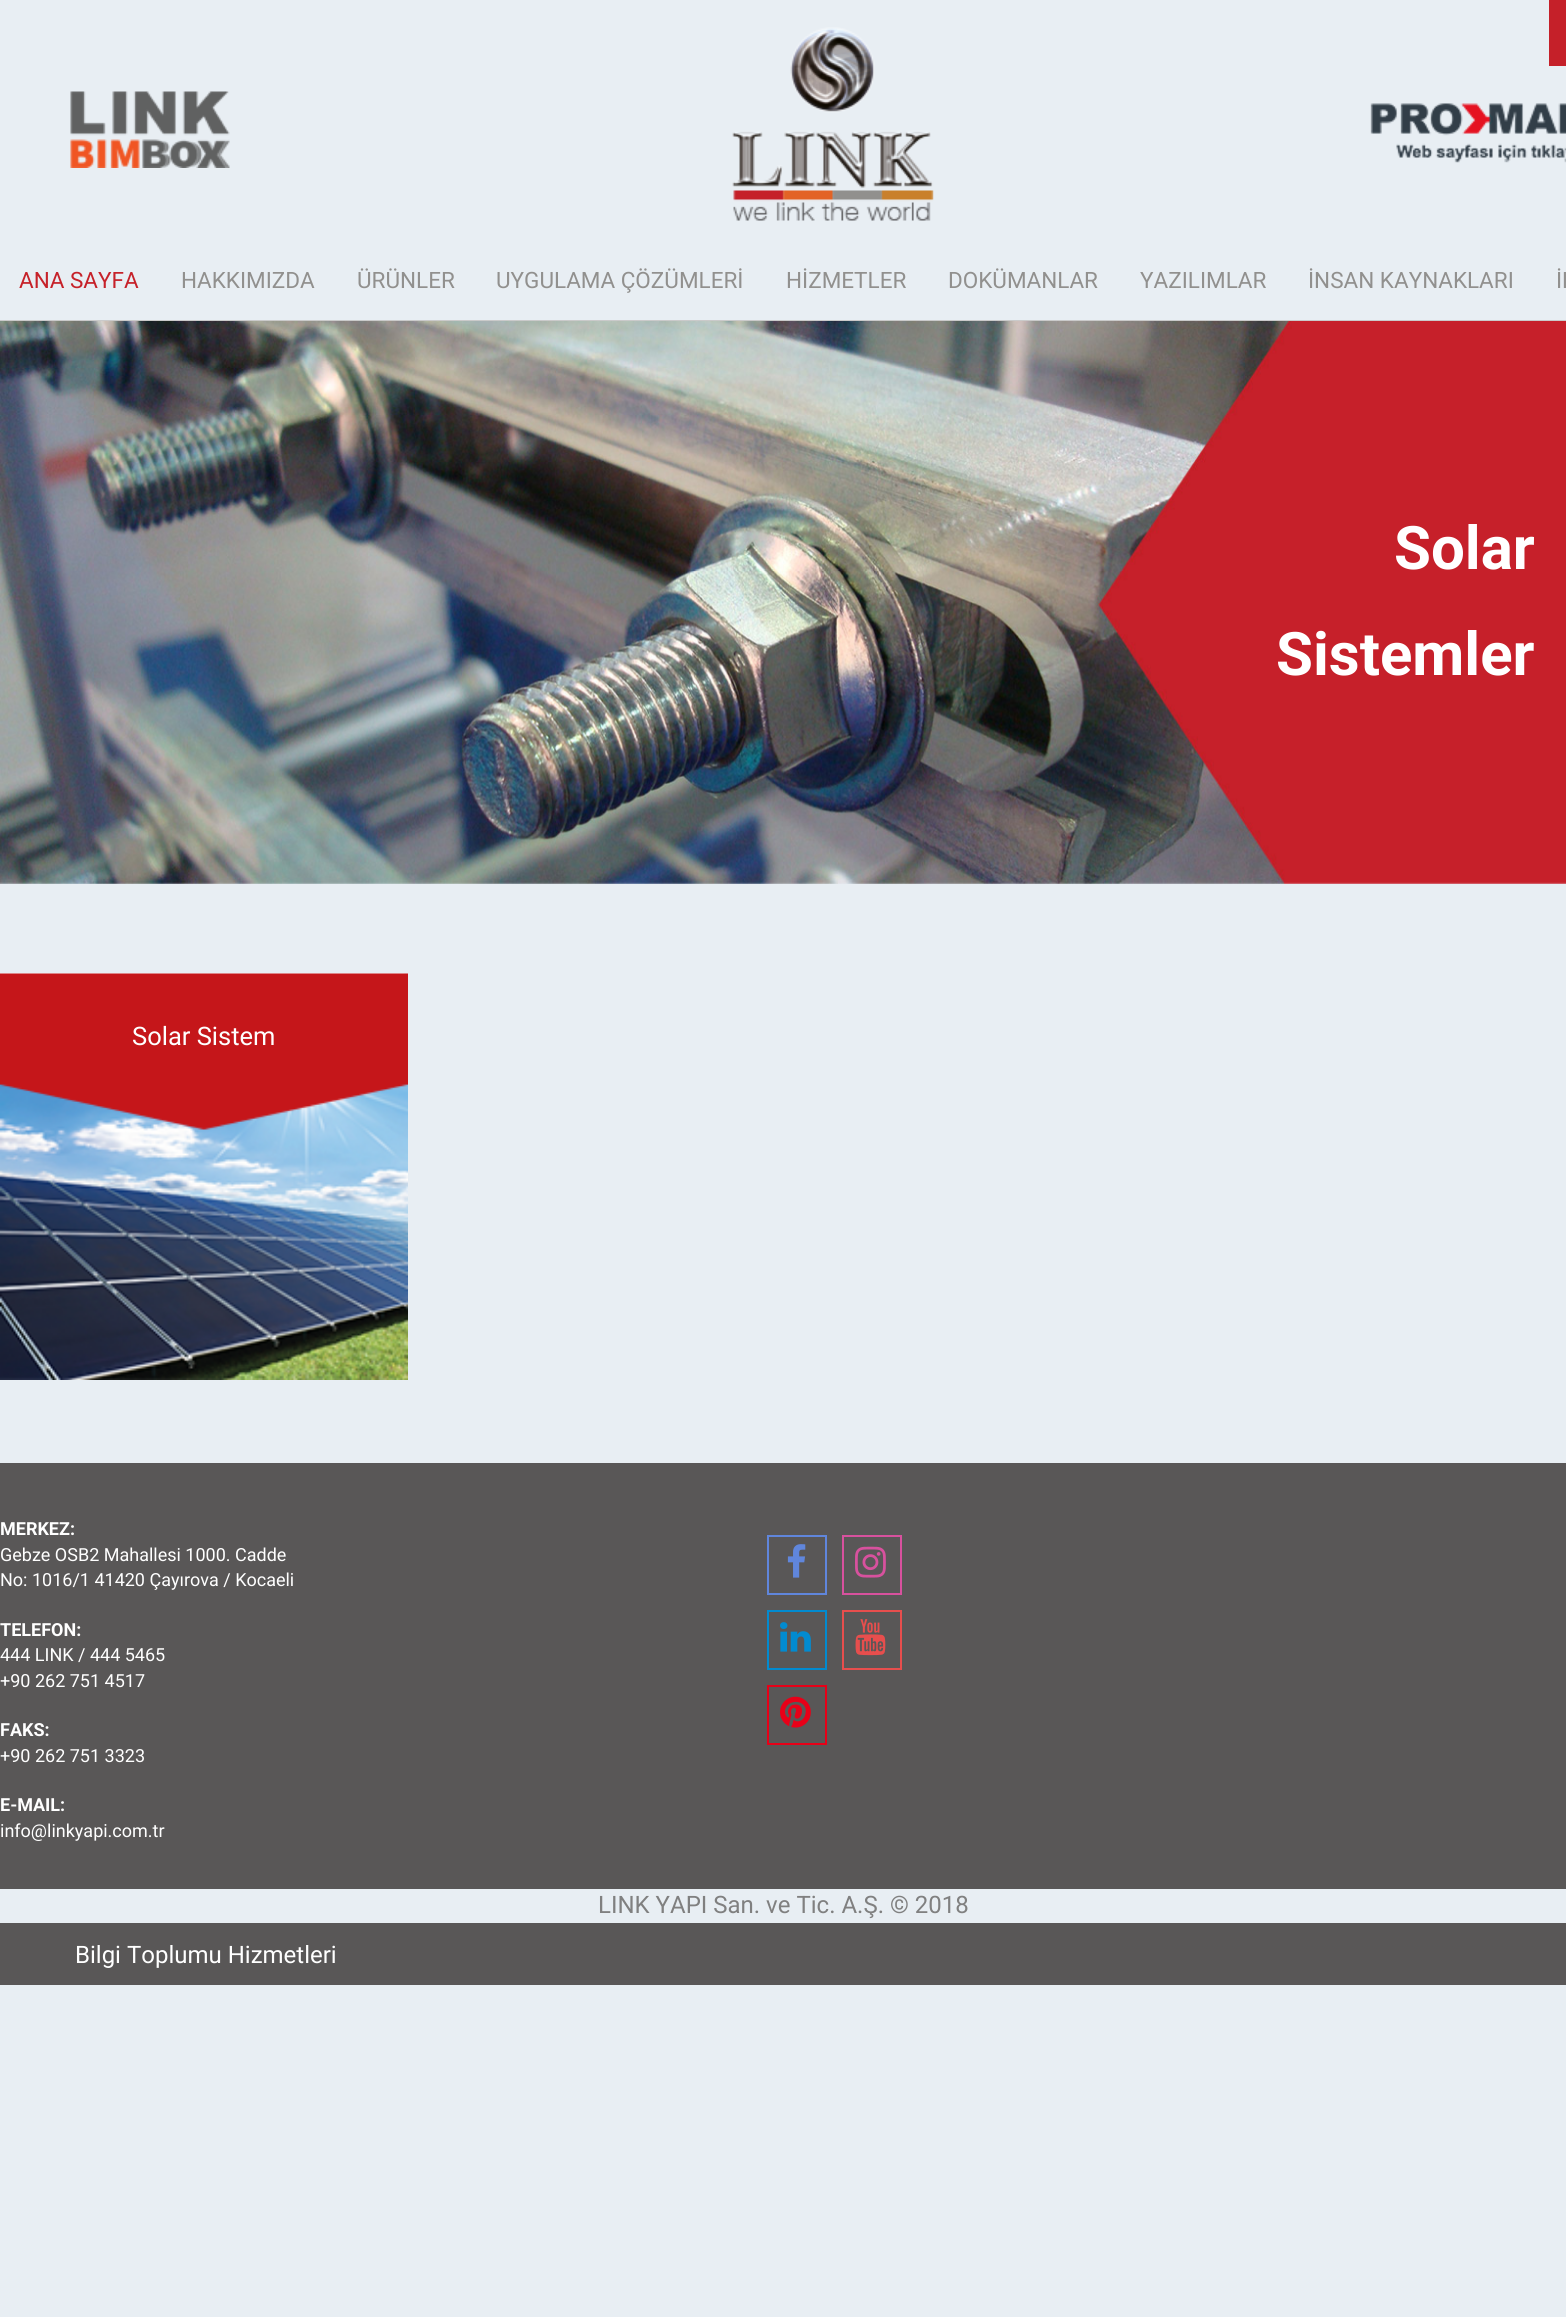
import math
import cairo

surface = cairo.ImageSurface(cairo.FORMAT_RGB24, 1566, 2317)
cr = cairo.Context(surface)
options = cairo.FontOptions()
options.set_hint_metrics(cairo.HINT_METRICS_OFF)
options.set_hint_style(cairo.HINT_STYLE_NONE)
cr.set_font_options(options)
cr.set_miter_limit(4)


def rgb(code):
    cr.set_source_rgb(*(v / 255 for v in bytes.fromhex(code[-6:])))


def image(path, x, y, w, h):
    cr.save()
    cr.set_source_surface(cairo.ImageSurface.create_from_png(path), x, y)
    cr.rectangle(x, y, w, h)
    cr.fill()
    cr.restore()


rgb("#e8eef3")
cr.paint()
rgb("#cacaca")
cr.rectangle(0, 320, 1566, 1)
cr.fill()
image("img/1.png", 70, 91, 160, 77)
image("img/2.png", 732, 27, 202, 194)
rgb("#c52029")
cr.rectangle(1549, 0, 17, 66)
cr.fill()
image("img/3.png", 1370, 103, 196, 60)
image("img/4.png", 0, 321, 1566, 563)
image("img/5.png", 0, 973, 408, 407)
image("img/6.png", 0, 973, 408, 157)
rgb("#595757")
cr.rectangle(0, 1463, 1566, 522)
cr.fill()
cr.rectangle(768, 1536, 58, 58)
rgb("#6086dc")
cr.stroke()
image("img/7.png", 787, 1544, 19, 34)
cr.rectangle(843, 1536, 58, 58)
rgb("#d8519e")
cr.stroke()
image("img/8.png", 855, 1546, 31, 32)
cr.rectangle(768, 1611, 58, 58)
rgb("#028bd0")
cr.stroke()
image("img/9.png", 780, 1622, 31, 30)
cr.rectangle(843, 1611, 58, 58)
rgb("#e74e4d")
cr.stroke()
image("img/10.png", 855, 1619, 31, 37)
cr.rectangle(768, 1686, 58, 58)
rgb("#e80018")
cr.stroke()
image("img/11.png", 780, 1696, 31, 32)
rgb("#e8eef3")
cr.rectangle(0, 1889, 1566, 34)
cr.fill()
cr.select_font_face("Roboto")
cr.set_font_size(22.5)
rgb("#c62129")
cr.move_to(19, 288)
cr.show_text("ANA SAYFA")
rgb("#91908e")
for x, y, s in [
    (181, 288, "HAKKIMIZDA"),
    (357, 288, "ÜRÜNLER"),
    (496, 288, "UYGULAMA ÇÖZÜMLERİ"),
    (786, 288, "HİZMETLER"),
    (948, 288, "DOKÜMANLAR"),
    (1140, 288, "YAZILIMLAR"),
    (1308, 288, "İNSAN KAYNAKLARI"),
    (1556, 288, "İL"),
]:
    cr.move_to(x, y)
    cr.show_text(s)
cr.select_font_face("Roboto", cairo.FONT_SLANT_NORMAL, cairo.FONT_WEIGHT_BOLD)
cr.set_font_size(60)
rgb("#ffffff")
cr.move_to(1394, 569)
cr.show_text("Solar")
cr.move_to(1276, 675)
cr.show_text("Sistemler")
cr.select_font_face("Roboto")
cr.set_font_size(25.5)
cr.move_to(132, 1045)
cr.show_text("Solar Sistem")
cr.select_font_face("Roboto", cairo.FONT_SLANT_NORMAL, cairo.FONT_WEIGHT_BOLD)
cr.set_font_size(18)
cr.move_to(0, 1535)
cr.show_text("MERKEZ:")
cr.select_font_face("Roboto")
cr.move_to(0, 1561)
cr.show_text("Gebze OSB2 Mahallesi 1000. Cadde")
cr.move_to(0, 1586)
cr.show_text("No: 1016/1 41420 Çayırova / Kocaeli")
cr.select_font_face("Roboto", cairo.FONT_SLANT_NORMAL, cairo.FONT_WEIGHT_BOLD)
cr.move_to(0, 1636)
cr.show_text("TELEFON:")
cr.select_font_face("Roboto")
cr.move_to(0, 1661)
cr.show_text("444 LINK / 444 5465")
cr.move_to(0, 1687)
cr.show_text("+90 262 751 4517")
cr.select_font_face("Roboto", cairo.FONT_SLANT_NORMAL, cairo.FONT_WEIGHT_BOLD)
cr.move_to(0, 1736)
cr.show_text("FAKS:")
cr.select_font_face("Roboto")
cr.move_to(0, 1762)
cr.show_text("+90 262 751 3323")
cr.select_font_face("Roboto", cairo.FONT_SLANT_NORMAL, cairo.FONT_WEIGHT_BOLD)
cr.move_to(0, 1811)
cr.show_text("E-MAIL:")
cr.select_font_face("Roboto")
cr.move_to(0, 1837)
cr.show_text("info@linkyapi.com.tr")
cr.set_font_size(24)
rgb("#808080")
cr.move_to(598, 1913)
cr.show_text("LINK YAPI San. ve Tic. A.Ş. © 2018")
rgb("#ffffff")
cr.move_to(75, 1963)
cr.show_text("Bilgi Toplumu Hizmetleri")
surface.write_to_png("page.png")
